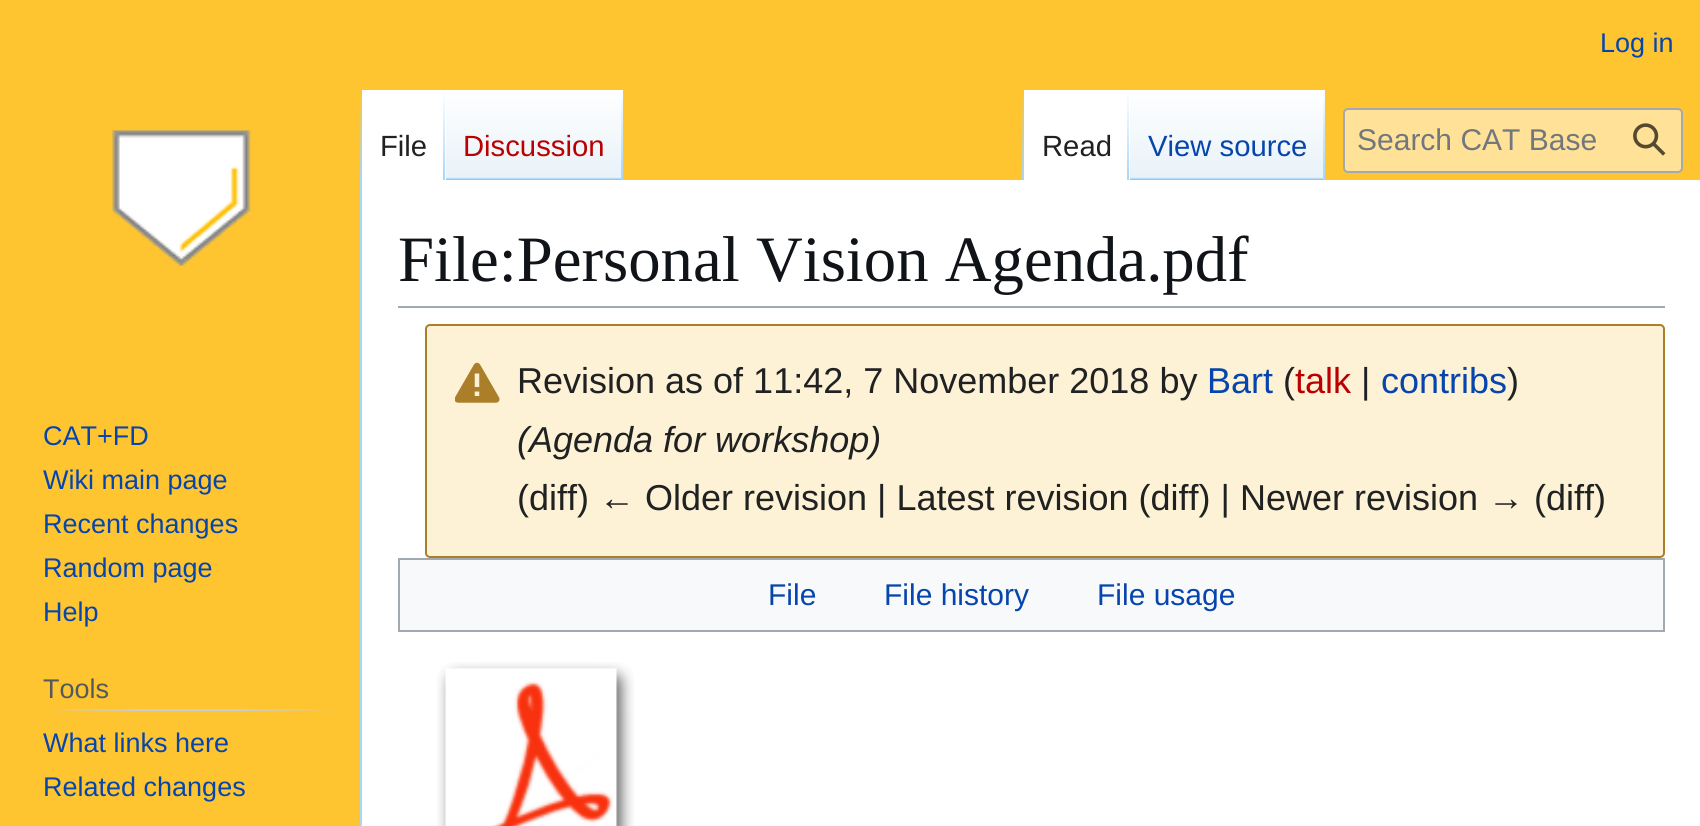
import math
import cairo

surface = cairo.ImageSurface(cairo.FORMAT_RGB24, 1700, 826)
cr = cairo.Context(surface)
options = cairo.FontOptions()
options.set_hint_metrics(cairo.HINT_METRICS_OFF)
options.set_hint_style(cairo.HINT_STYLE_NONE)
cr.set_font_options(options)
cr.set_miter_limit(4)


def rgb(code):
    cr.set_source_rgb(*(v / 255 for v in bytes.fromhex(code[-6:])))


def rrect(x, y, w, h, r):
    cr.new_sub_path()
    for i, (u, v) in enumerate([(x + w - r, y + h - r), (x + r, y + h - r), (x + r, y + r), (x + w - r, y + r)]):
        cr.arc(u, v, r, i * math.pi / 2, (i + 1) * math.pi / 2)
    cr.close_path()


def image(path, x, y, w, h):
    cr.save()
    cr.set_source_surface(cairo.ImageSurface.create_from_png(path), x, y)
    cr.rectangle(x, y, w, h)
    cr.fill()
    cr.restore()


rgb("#ffc530")
cr.paint()
rgb("#a7d7f9")
cr.rectangle(360, 178, 2, 648)
cr.fill()
rgb("#ffc530")
cr.rectangle(360, 178, 2, 2)
cr.fill()
gradient = cairo.LinearGradient(361, 90, 361, 180)
gradient.add_color_stop_rgba(0, 1, 0.773, 0.188, 1)
gradient.add_color_stop_rgba(1, 0.655, 0.843, 0.976, 1)
cr.set_source(gradient)
cr.rectangle(360, 90, 2, 90)
cr.fill()
rgb("#ffffff")
cr.rectangle(362, 90, 84, 90)
cr.fill()
gradient = cairo.LinearGradient(444, 90, 444, 180)
gradient.add_color_stop_rgba(0, 1, 1, 1, 1)
gradient.add_color_stop_rgba(1, 0.655, 0.843, 0.976, 1)
cr.set_source(gradient)
cr.rectangle(443, 90, 2, 90)
cr.fill()
gradient = cairo.LinearGradient(534, 180, 534, 90)
gradient.add_color_stop_rgba(0, 0.467, 0.757, 0.965, 1)
gradient.add_color_stop_rgba(0.03, 0.91, 0.949, 0.973, 1)
gradient.add_color_stop_rgba(1, 1, 1, 1, 1)
cr.set_source(gradient)
cr.rectangle(446, 90, 177, 90)
cr.fill()
gradient = cairo.LinearGradient(622, 90, 622, 180)
gradient.add_color_stop_rgba(0, 0.655, 0.843, 0.976, 0)
gradient.add_color_stop_rgba(1, 0.655, 0.843, 0.976, 1)
cr.set_source(gradient)
cr.rectangle(621, 90, 2, 90)
cr.fill()
gradient = cairo.LinearGradient(1023, 90, 1023, 180)
gradient.add_color_stop_rgba(0, 1, 0.773, 0.188, 1)
gradient.add_color_stop_rgba(1, 0.655, 0.843, 0.976, 1)
cr.set_source(gradient)
cr.rectangle(1022, 90, 2, 90)
cr.fill()
rgb("#ffffff")
cr.rectangle(1024, 90, 106, 90)
cr.fill()
gradient = cairo.LinearGradient(1128, 90, 1128, 180)
gradient.add_color_stop_rgba(0, 1, 1, 1, 1)
gradient.add_color_stop_rgba(1, 0.655, 0.843, 0.976, 1)
cr.set_source(gradient)
cr.rectangle(1127, 90, 2, 90)
cr.fill()
gradient = cairo.LinearGradient(1227, 180, 1227, 90)
gradient.add_color_stop_rgba(0, 0.467, 0.757, 0.965, 1)
gradient.add_color_stop_rgba(0.03, 0.91, 0.949, 0.973, 1)
gradient.add_color_stop_rgba(1, 1, 1, 1, 1)
cr.set_source(gradient)
cr.rectangle(1130, 90, 195, 90)
cr.fill()
gradient = cairo.LinearGradient(1324, 90, 1324, 180)
gradient.add_color_stop_rgba(0, 0.655, 0.843, 0.976, 0)
gradient.add_color_stop_rgba(1, 0.655, 0.843, 0.976, 1)
cr.set_source(gradient)
cr.rectangle(1323, 90, 2, 90)
cr.fill()
rgb("#ffe298")
rrect(1344, 109, 338, 63, 4)
cr.fill_preserve()
rgb("#a2a9b1")
cr.stroke()
image("img/1.png", 1633, 123, 33, 33)
image("img/2.png", 112, 130, 139, 136)
gradient = cairo.LinearGradient(43, 710, 338, 710)
gradient.add_color_stop_rgba(0, 1, 0.773, 0.188, 1)
gradient.add_color_stop_rgba(0.33, 0.784, 0.8, 0.82, 1)
gradient.add_color_stop_rgba(0.66, 0.784, 0.8, 0.82, 1)
gradient.add_color_stop_rgba(1, 1, 0.773, 0.188, 1)
cr.set_source(gradient)
cr.rectangle(43, 709, 295, 2)
cr.fill()
rgb("#ffffff")
cr.rectangle(362, 180, 1338, 646)
cr.fill()
rgb("#a2a9b1")
cr.rectangle(398, 306, 1267, 2)
cr.fill()
rgb("#fdf2d5")
rrect(426, 325, 1238, 232, 4)
cr.fill_preserve()
rgb("#ab7f2a")
cr.stroke()
image("img/3.png", 455, 362, 45, 41)
rgb("#f8f9fa")
cr.rectangle(399, 559, 1265, 72)
cr.fill_preserve()
rgb("#a2a9b1")
cr.stroke()
image("img/4.png", 437, 662, 197, 164)
cr.select_font_face("Liberation Sans")
cr.set_font_size(27)
rgb("#0645ad")
cr.move_to(1600, 52)
cr.show_text("Log in")
cr.set_font_size(29.25)
rgb("#202122")
cr.move_to(380, 156)
cr.show_text("File")
rgb("#ba0000")
cr.move_to(463, 156)
cr.show_text("Discussion")
rgb("#202122")
cr.move_to(1042, 156)
cr.show_text("Read")
rgb("#0645ad")
cr.move_to(1148, 156)
cr.show_text("View source")
cr.set_font_size(30)
rgb("#72777d")
cr.move_to(1357, 150)
cr.show_text("Search CAT Base")
cr.set_font_size(27)
rgb("#0645ad")
for x, y, s in [
    (43, 445, "CAT+FD"),
    (43, 489, "Wiki main page"),
    (43, 533, "Recent changes"),
    (43, 577, "Random page"),
    (43, 621, "Help"),
]:
    cr.move_to(x, y)
    cr.show_text(s)
rgb("#54595d")
cr.move_to(43, 698)
cr.show_text("Tools")
rgb("#0645ad")
cr.move_to(43, 752)
cr.show_text("What links here")
cr.move_to(43, 796)
cr.show_text("Related changes")
cr.select_font_face("Liberation Serif")
cr.set_font_size(64.75)
rgb("#101418")
cr.move_to(398, 281)
cr.show_text("File:Personal Vision Agenda.pdf")
cr.select_font_face("Liberation Sans")
cr.set_font_size(36)
rgb("#202122")
cr.move_to(517, 393)
cr.show_text("Revision as of 11:42, 7 November 2018 by")
rgb("#0645ad")
cr.move_to(1207, 393)
cr.show_text("Bart")
rgb("#202122")
cr.move_to(1283, 393)
cr.show_text("(")
rgb("#ba0000")
cr.move_to(1295, 393)
cr.show_text("talk")
rgb("#202122")
cr.move_to(1361, 393)
cr.show_text("|")
rgb("#0645ad")
cr.move_to(1381, 393)
cr.show_text("contribs")
rgb("#202122")
cr.move_to(1507, 393)
cr.show_text(")")
cr.select_font_face("Liberation Sans", cairo.FONT_SLANT_ITALIC)
cr.move_to(517, 452)
cr.show_text("(Agenda for workshop)")
cr.select_font_face("Liberation Sans")
cr.move_to(517, 510)
cr.show_text("(diff) ← Older revision | Latest revision (diff) | Newer revision → (diff)")
cr.set_font_size(30)
rgb("#0645ad")
for x, y, s in [
    (768, 605, "File"),
    (884, 605, "File history"),
    (1097, 605, "File usage"),
]:
    cr.move_to(x, y)
    cr.show_text(s)
surface.write_to_png("page.png")
